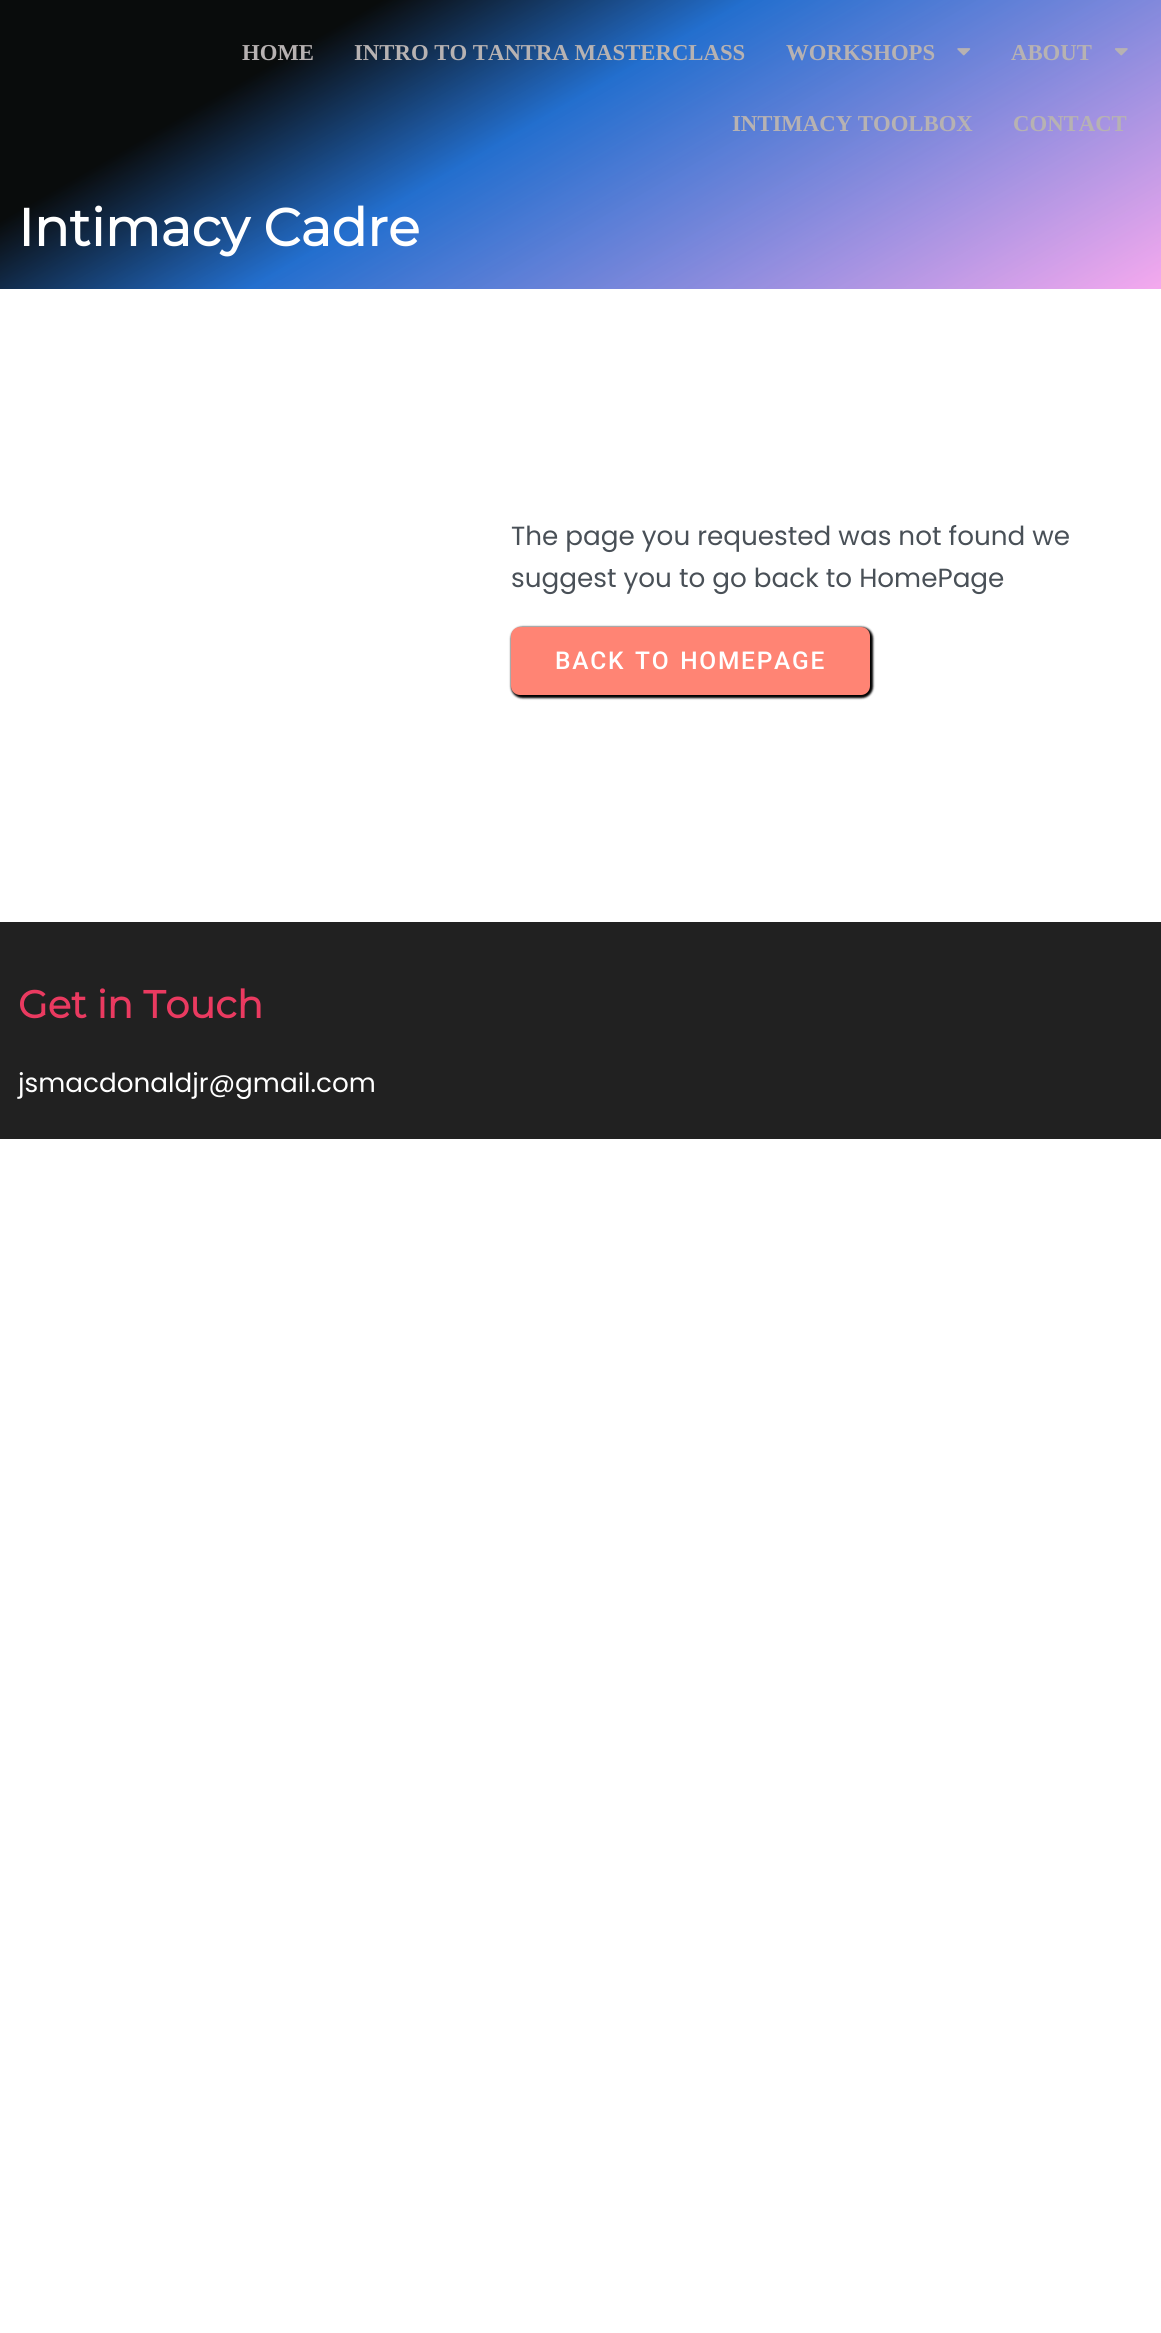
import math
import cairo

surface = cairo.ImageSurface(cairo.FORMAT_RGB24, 1161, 2333)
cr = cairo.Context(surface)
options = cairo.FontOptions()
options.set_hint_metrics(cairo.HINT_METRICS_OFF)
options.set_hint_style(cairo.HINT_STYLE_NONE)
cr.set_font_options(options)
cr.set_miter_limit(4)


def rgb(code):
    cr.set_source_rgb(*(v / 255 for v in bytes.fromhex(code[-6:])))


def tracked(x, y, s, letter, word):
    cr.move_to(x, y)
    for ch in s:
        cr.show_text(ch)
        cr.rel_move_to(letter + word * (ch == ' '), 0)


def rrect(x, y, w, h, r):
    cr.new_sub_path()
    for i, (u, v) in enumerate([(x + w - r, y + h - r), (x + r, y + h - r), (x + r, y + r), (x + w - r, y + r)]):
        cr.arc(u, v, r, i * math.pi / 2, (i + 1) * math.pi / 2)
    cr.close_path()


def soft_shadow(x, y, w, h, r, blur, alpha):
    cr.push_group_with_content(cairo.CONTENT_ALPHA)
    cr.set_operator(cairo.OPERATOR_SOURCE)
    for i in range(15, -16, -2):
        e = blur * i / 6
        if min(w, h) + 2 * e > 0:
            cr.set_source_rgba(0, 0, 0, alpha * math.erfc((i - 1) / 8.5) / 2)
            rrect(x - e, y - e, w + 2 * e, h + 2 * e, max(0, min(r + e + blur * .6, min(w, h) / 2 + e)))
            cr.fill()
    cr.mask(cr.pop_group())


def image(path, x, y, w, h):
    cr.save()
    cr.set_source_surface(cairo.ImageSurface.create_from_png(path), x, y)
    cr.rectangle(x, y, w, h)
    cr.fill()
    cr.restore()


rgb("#ffffff")
cr.paint()
gradient = cairo.LinearGradient(373, -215, 789, 504)
gradient.add_color_stop_rgba(0.23, 0.122, 0.153, 0.161, 1)
gradient.add_color_stop_rgba(0.45, 0.149, 0.471, 0.792, 1)
gradient.add_color_stop_rgba(1, 0.89, 0.161, 0.91, 1)
cr.set_source(gradient)
cr.rectangle(0, 0, 1161, 289)
cr.fill()
gradient = cairo.LinearGradient(373, -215, 789, 504)
gradient.add_color_stop_rgba(0.23, 0, 0, 0, 0.7)
gradient.add_color_stop_rgba(0.45, 0.133, 0.42, 0.816, 0.7)
gradient.add_color_stop_rgba(1, 0.992, 0.878, 0.945, 0.7)
cr.set_source(gradient)
cr.rectangle(0, 0, 1161, 289)
cr.fill()
image("img/1.png", 957, 48, 14, 8)
image("img/2.png", 1115, 48, 13, 8)
rgb("#000000")
soft_shadow(511, 627, 362, 71, 11, 1, 1)
rgb("#ff8474")
rrect(511, 627, 359, 68, 9)
cr.fill()
rgb("#212121")
cr.rectangle(0, 922, 1161, 217)
cr.fill()
cr.select_font_face("Liberation Serif", cairo.FONT_SLANT_NORMAL, cairo.FONT_WEIGHT_BOLD)
cr.set_font_size(22.75)
rgb("#b7b2b2")
for x, y, s in [
    (242, 60, "HOME"),
    (354, 60, "INTRO TO TANTRA MASTERCLASS"),
    (786, 60, "WORKSHOPS"),
    (1011, 60, "ABOUT"),
    (732, 131, "INTIMACY TOOLBOX"),
    (1013, 131, "CONTACT"),
]:
    cr.move_to(x, y)
    cr.show_text(s)
cr.select_font_face("Montserrat", cairo.FONT_SLANT_NORMAL, cairo.FONT_WEIGHT_BOLD)
cr.set_font_size(52.5)
rgb("#ffffff")
cr.move_to(18, 246)
cr.show_text("Intimacy Cadre")
cr.select_font_face("Poppins")
cr.set_font_size(26.25)
rgb("#495057")
cr.move_to(511, 545)
cr.show_text("The page you requested was not found we")
cr.move_to(511, 587)
cr.show_text("suggest you to go back to HomePage")
cr.select_font_face("Roboto Medium")
cr.set_font_size(24.5)
rgb("#ffffff")
tracked(555, 669, "BACK TO HOMEPAGE", 1.75, 2)
cr.select_font_face("Montserrat", cairo.FONT_SLANT_NORMAL, cairo.FONT_WEIGHT_BOLD)
cr.set_font_size(38.5)
rgb("#ea3a60")
cr.move_to(18, 1018)
cr.show_text("Get in Touch")
cr.select_font_face("Poppins")
cr.set_font_size(26.25)
rgb("#ffffff")
cr.move_to(18, 1092)
cr.show_text("jsmacdonaldjr@gmail.com")
surface.write_to_png("page.png")
